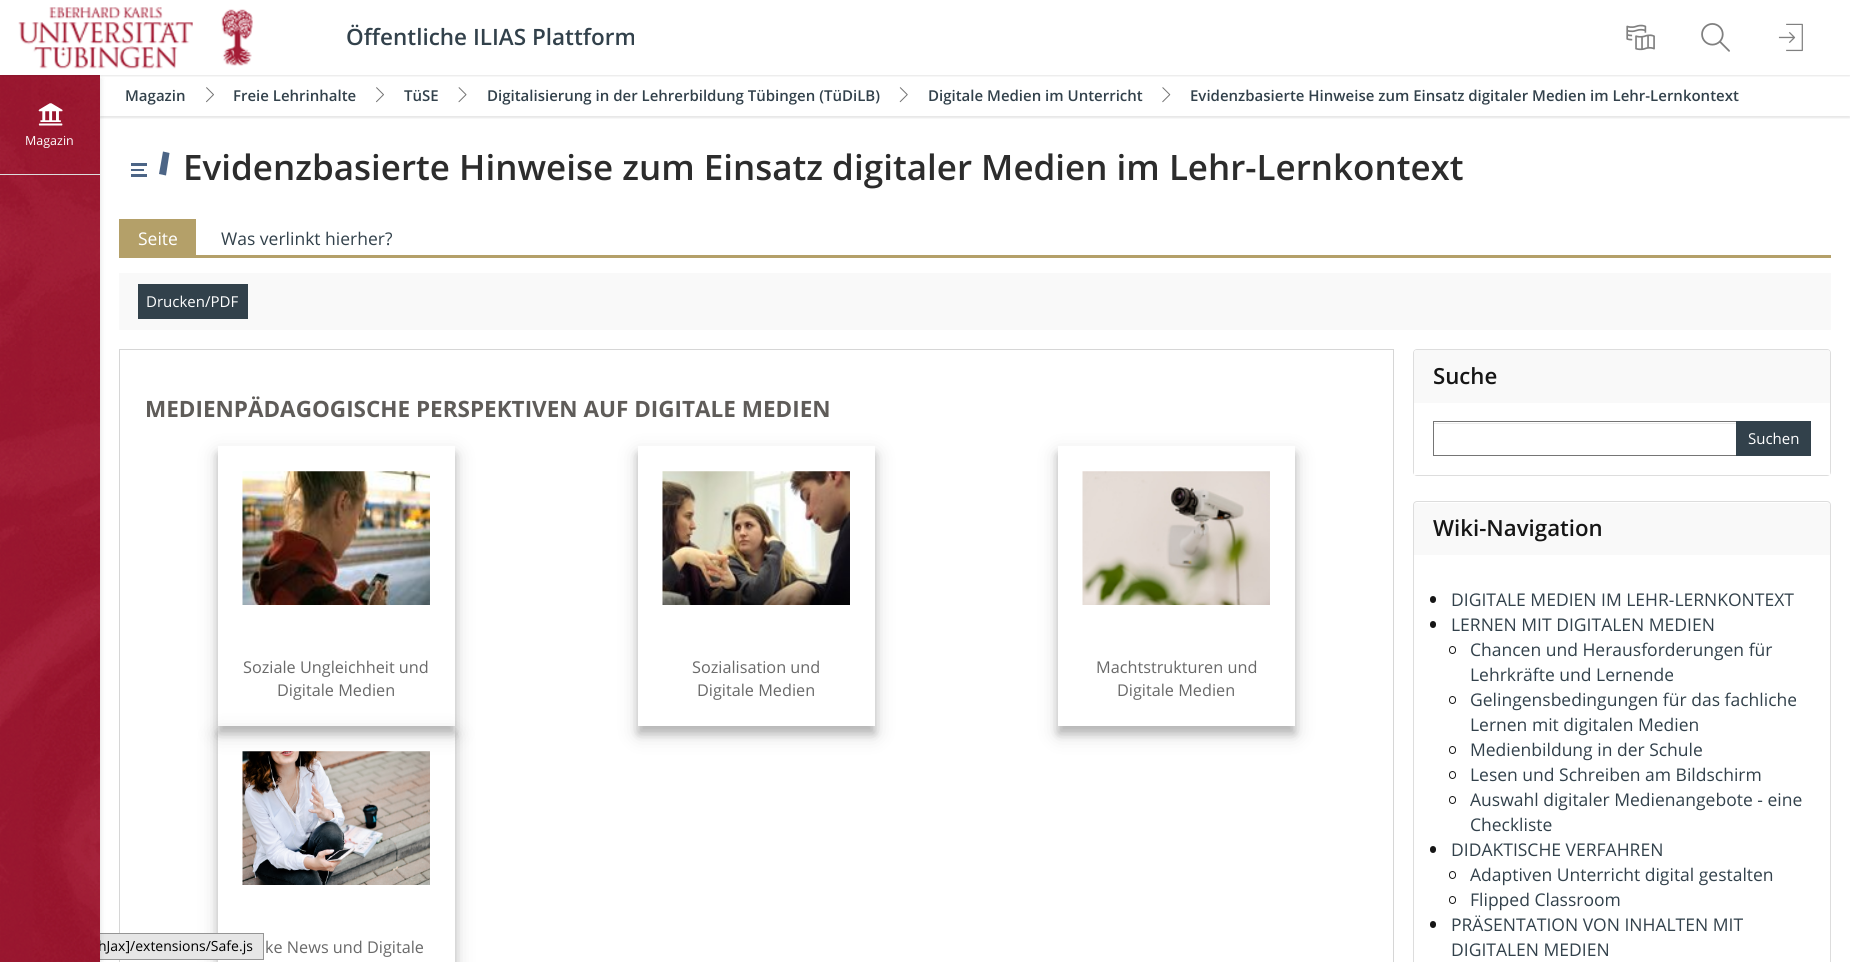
import math
import cairo

surface = cairo.ImageSurface(cairo.FORMAT_RGB24, 1850, 962)
cr = cairo.Context(surface)
options = cairo.FontOptions()
options.set_hint_metrics(cairo.HINT_METRICS_OFF)
options.set_hint_style(cairo.HINT_STYLE_NONE)
cr.set_font_options(options)
cr.set_miter_limit(4)


def rgb(code):
    cr.set_source_rgb(*(v / 255 for v in bytes.fromhex(code[-6:])))


def rrect(x, y, w, h, r):
    cr.new_sub_path()
    for i, (u, v) in enumerate([(x + w - r, y + h - r), (x + r, y + h - r), (x + r, y + r), (x + w - r, y + r)]):
        cr.arc(u, v, r, i * math.pi / 2, (i + 1) * math.pi / 2)
    cr.close_path()


def soft_shadow(x, y, w, h, r, blur, alpha):
    cr.push_group_with_content(cairo.CONTENT_ALPHA)
    cr.set_operator(cairo.OPERATOR_SOURCE)
    for i in range(15, -16, -2):
        e = blur * i / 6
        if min(w, h) + 2 * e > 0:
            cr.set_source_rgba(0, 0, 0, alpha * math.erfc((i - 1) / 8.5) / 2)
            rrect(x - e, y - e, w + 2 * e, h + 2 * e, max(0, min(r + e + blur * .6, min(w, h) / 2 + e)))
            cr.fill()
    cr.mask(cr.pop_group())


def image(path, x, y, w, h):
    cr.save()
    cr.set_source_surface(cairo.ImageSurface.create_from_png(path), x, y)
    cr.rectangle(x, y, w, h)
    cr.fill()
    cr.restore()


rgb("#ffffff")
cr.paint()
cr.rectangle(119.5, 349.5, 1274, 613)
rgb("#d6d6d6")
cr.set_line_width(1)
cr.stroke()
cr.save()
cr.set_fill_rule(cairo.FILL_RULE_EVEN_ODD)
cr.new_path()
cr.move_to(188, 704)
cr.line_to(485, 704)
cr.line_to(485, 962)
cr.line_to(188, 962)
cr.close_path()
cr.move_to(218, 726)
cr.line_to(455, 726)
cr.line_to(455, 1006)
cr.line_to(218, 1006)
cr.close_path()
cr.clip()
rgb("#000000")
soft_shadow(218, 734, 237, 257, 0, 9.5, 0.18)
cr.restore()
cr.save()
cr.set_fill_rule(cairo.FILL_RULE_EVEN_ODD)
cr.new_path()
cr.move_to(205, 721)
cr.line_to(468, 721)
cr.line_to(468, 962)
cr.line_to(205, 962)
cr.close_path()
cr.move_to(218, 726)
cr.line_to(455, 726)
cr.line_to(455, 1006)
cr.line_to(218, 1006)
cr.close_path()
cr.clip()
rgb("#000000")
soft_shadow(218, 734, 237, 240, 0, 4, 0.16)
cr.restore()
rgb("#e6e6e6")
cr.rectangle(100, 934, 163, 25)
cr.fill()
cr.rectangle(1.5, 933.5, 262, 26)
rgb("#959595")
cr.stroke()
rgb("#000000")
soft_shadow(1, 79, 100, 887, 0, 2.5, 0.1)
cr.save()
cr.rectangle(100, 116, 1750, 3)
cr.clip()
soft_shadow(100, 76, 1750, 42, 0, 1, 0.1)
cr.restore()
image("img/7.png", 206, 87, 8, 16)
image("img/7.png", 376, 87, 8, 16)
image("img/8.png", 458, 87, 9, 16)
image("img/9.png", 899, 87, 9, 16)
image("img/10.png", 1162, 87, 9, 16)
for x, y, w, h, color in [
    (131, 163, 16, 3, "#4c6586"),
    (131, 169, 13, 2, "#4c6586"),
    (131, 174, 16, 3, "#4c6586"),
]:
    rgb(color)
    cr.rectangle(x, y, w, h)
    cr.fill()
cr.new_path()
cr.move_to(159, 174)
cr.line_to(163, 151.5)
cr.line_to(169.5, 153)
cr.line_to(166, 175.5)
cr.close_path()
cr.fill()
for x, y, w, h, color in [
    (119, 255, 1712, 3, "#b4a069"),
    (119, 219, 77, 36, "#b4a069"),
    (119, 273, 1712, 57, "#f9f9f9"),
    (138, 284, 110, 35, "#32414b"),
]:
    rgb(color)
    cr.rectangle(x, y, w, h)
    cr.fill()
cr.save()
cr.set_fill_rule(cairo.FILL_RULE_EVEN_ODD)
cr.new_path()
cr.move_to(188, 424)
cr.line_to(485, 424)
cr.line_to(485, 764)
cr.line_to(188, 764)
cr.close_path()
cr.move_to(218, 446)
cr.line_to(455, 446)
cr.line_to(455, 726)
cr.line_to(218, 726)
cr.close_path()
cr.clip()
rgb("#000000")
soft_shadow(218, 454, 237, 280, 0, 9.5, 0.18)
cr.restore()
cr.save()
cr.set_fill_rule(cairo.FILL_RULE_EVEN_ODD)
cr.new_path()
cr.move_to(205, 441)
cr.line_to(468, 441)
cr.line_to(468, 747)
cr.line_to(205, 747)
cr.close_path()
cr.move_to(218, 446)
cr.line_to(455, 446)
cr.line_to(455, 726)
cr.line_to(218, 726)
cr.close_path()
cr.clip()
rgb("#000000")
soft_shadow(218, 454, 237, 280, 0, 4, 0.16)
cr.restore()
image("img/11.png", 242, 471, 188, 134)
cr.save()
cr.set_fill_rule(cairo.FILL_RULE_EVEN_ODD)
cr.new_path()
cr.move_to(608, 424)
cr.line_to(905, 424)
cr.line_to(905, 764)
cr.line_to(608, 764)
cr.close_path()
cr.move_to(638, 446)
cr.line_to(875, 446)
cr.line_to(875, 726)
cr.line_to(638, 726)
cr.close_path()
cr.clip()
rgb("#000000")
soft_shadow(638, 454, 237, 280, 0, 9.5, 0.18)
cr.restore()
cr.save()
cr.set_fill_rule(cairo.FILL_RULE_EVEN_ODD)
cr.new_path()
cr.move_to(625, 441)
cr.line_to(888, 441)
cr.line_to(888, 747)
cr.line_to(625, 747)
cr.close_path()
cr.move_to(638, 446)
cr.line_to(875, 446)
cr.line_to(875, 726)
cr.line_to(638, 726)
cr.close_path()
cr.clip()
rgb("#000000")
soft_shadow(638, 454, 237, 280, 0, 4, 0.16)
cr.restore()
image("img/12.png", 662, 471, 188, 134)
cr.save()
cr.set_fill_rule(cairo.FILL_RULE_EVEN_ODD)
cr.new_path()
cr.move_to(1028, 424)
cr.line_to(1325, 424)
cr.line_to(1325, 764)
cr.line_to(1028, 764)
cr.close_path()
cr.move_to(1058, 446)
cr.line_to(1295, 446)
cr.line_to(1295, 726)
cr.line_to(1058, 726)
cr.close_path()
cr.clip()
rgb("#000000")
soft_shadow(1058, 454, 237, 280, 0, 9.5, 0.18)
cr.restore()
cr.save()
cr.set_fill_rule(cairo.FILL_RULE_EVEN_ODD)
cr.new_path()
cr.move_to(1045, 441)
cr.line_to(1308, 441)
cr.line_to(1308, 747)
cr.line_to(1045, 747)
cr.close_path()
cr.move_to(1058, 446)
cr.line_to(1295, 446)
cr.line_to(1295, 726)
cr.line_to(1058, 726)
cr.close_path()
cr.clip()
rgb("#000000")
soft_shadow(1058, 454, 237, 280, 0, 4, 0.16)
cr.restore()
image("img/13.png", 1082, 471, 188, 134)
image("img/14.png", 242, 751, 188, 134)
rrect(1413.5, 349.5, 417, 126, 3.5)
rgb("#dddddd")
cr.stroke()
rgb("#f9f9f9")
cr.new_path()
cr.move_to(1416.5, 350)
cr.line_to(1827.5, 350)
cr.curve_to(1829, 350, 1830, 351, 1830, 352.5)
cr.line_to(1830, 403)
cr.line_to(1414, 403)
cr.line_to(1414, 352.5)
cr.curve_to(1414, 351, 1415, 350, 1416.5, 350)
cr.close_path()
cr.fill()
rgb("#ffffff")
cr.rectangle(1414, 472, 416, 3)
cr.fill()
rgb("#ececec")
cr.rectangle(1434, 423, 302, 1)
cr.fill()
cr.rectangle(1433.5, 421.5, 304, 34)
rgb("#757575")
cr.stroke()
rgb("#32414b")
cr.rectangle(1736, 421, 75, 35)
cr.fill()
rrect(1413.5, 501.5, 417, 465, 3.5)
rgb("#dddddd")
cr.stroke()
rgb("#f9f9f9")
cr.new_path()
cr.move_to(1416.5, 503)
cr.line_to(1827.5, 503)
cr.curve_to(1829, 503, 1830, 504, 1830, 505.5)
cr.line_to(1830, 555)
cr.line_to(1414, 555)
cr.line_to(1414, 505.5)
cr.curve_to(1414, 504, 1415, 503, 1416.5, 503)
cr.close_path()
cr.fill()
rgb("#161616")
rrect(1430, 596, 6, 7, 3)
cr.fill()
rrect(1430, 621, 6, 7, 3)
cr.fill()
rrect(1449.5, 646.5, 6, 7, 3)
cr.stroke()
rrect(1449.5, 696.5, 6, 7, 3)
cr.stroke()
rrect(1449.5, 746.5, 6, 7, 3)
cr.stroke()
rrect(1449.5, 771.5, 6, 7, 3)
cr.stroke()
rrect(1449.5, 796.5, 6, 7, 3)
cr.stroke()
rrect(1430, 846, 6, 7, 3)
cr.fill()
rrect(1449.5, 871.5, 6, 7, 3)
cr.stroke()
rrect(1449.5, 896.5, 6, 7, 3)
cr.stroke()
rrect(1430, 921, 6, 7, 3)
cr.fill()
cr.select_font_face("Open Sans SemiBold")
cr.set_font_size(15)
rgb("#32414b")
for x, y, s in [
    (125, 101, "Magazin"),
    (233, 101, "Freie Lehrinhalte"),
    (404, 101, "TüSE"),
    (487, 101, "Digitalisierung in der Lehrerbildung Tübingen (TüDiLB)"),
    (928, 101, "Digitale Medien im Unterricht"),
    (1190, 101, "Evidenzbasierte Hinweise zum Einsatz digitaler Medien im Lehr-Lernkontext"),
]:
    cr.move_to(x, y)
    cr.show_text(s)
cr.set_font_size(35)
rgb("#2c2c2c")
cr.move_to(183, 180)
cr.show_text("Evidenzbasierte Hinweise zum Einsatz digitaler Medien im Lehr-Lernkontext")
cr.select_font_face("Open Sans")
cr.set_font_size(17.5)
rgb("#ffffff")
cr.move_to(138, 245)
cr.show_text("Seite")
rgb("#32414b")
cr.move_to(221, 245)
cr.show_text("Was verlinkt hierher?")
cr.set_font_size(15)
rgb("#ffffff")
cr.move_to(146, 307)
cr.show_text("Drucken/PDF")
cr.select_font_face("Open Sans", cairo.FONT_SLANT_NORMAL, cairo.FONT_WEIGHT_BOLD)
cr.set_font_size(22.5)
rgb("#5f5c59")
cr.move_to(145, 417)
cr.show_text("MEDIENPÄDAGOGISCHE PERSPEKTIVEN AUF DIGITALE MEDIEN")
cr.select_font_face("Open Sans")
cr.set_font_size(16.25)
rgb("#696969")
for x, y, s in [
    (243, 673, "Soziale Ungleichheit und"),
    (277, 696, "Digitale Medien"),
    (692, 673, "Sozialisation und"),
    (697, 696, "Digitale Medien"),
    (1096, 673, "Machtstrukturen und"),
    (1117, 696, "Digitale Medien"),
    (265, 953, "ke News und Digitale"),
]:
    cr.move_to(x, y)
    cr.show_text(s)
cr.select_font_face("Open Sans SemiBold")
cr.set_font_size(22.25)
rgb("#161616")
cr.move_to(1433, 384)
cr.show_text("Suche")
cr.select_font_face("Open Sans")
cr.set_font_size(15)
rgb("#ffffff")
cr.move_to(1748, 444)
cr.show_text("Suchen")
cr.select_font_face("Open Sans SemiBold")
cr.set_font_size(22.25)
rgb("#161616")
cr.move_to(1433, 536)
cr.show_text("Wiki-Navigation")
cr.select_font_face("Open Sans")
cr.set_font_size(17.5)
rgb("#32414b")
for x, y, s in [
    (1451, 606, "DIGITALE MEDIEN IM LEHR-LERNKONTEXT"),
    (1451, 631, "LERNEN MIT DIGITALEN MEDIEN"),
    (1470, 656, "Chancen und Herausforderungen für"),
    (1470, 681, "Lehrkräfte und Lernende"),
    (1470, 706, "Gelingensbedingungen für das fachliche"),
    (1470, 731, "Lernen mit digitalen Medien"),
    (1470, 756, "Medienbildung in der Schule"),
    (1470, 781, "Lesen und Schreiben am Bildschirm"),
    (1470, 806, "Auswahl digitaler Medienangebote - eine"),
    (1470, 831, "Checkliste"),
    (1451, 856, "DIDAKTISCHE VERFAHREN"),
    (1470, 881, "Adaptiven Unterricht digital gestalten"),
    (1470, 906, "Flipped Classroom"),
    (1451, 931, "PRÄSENTATION VON INHALTEN MIT"),
    (1451, 956, "DIGITALEN MEDIEN"),
]:
    cr.move_to(x, y)
    cr.show_text(s)
cr.set_font_size(14)
rgb("#000000")
cr.move_to(98, 951)
cr.show_text("hJax]/extensions/Safe.js")
image("img/5.png", 0, 75, 100, 887)
cr.save()
cr.rectangle(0, 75, 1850, 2)
cr.clip()
rgb("#000000")
soft_shadow(0, 1, 1850, 75, 0, 1, 0.1)
cr.restore()
image("img/4.png", 1778, 23, 25, 29)
image("img/3.png", 1701, 23, 29, 29)
image("img/2.png", 1626, 24, 29, 27)
cr.select_font_face("Open Sans SemiBold")
cr.set_font_size(22.5)
rgb("#32414b")
cr.move_to(346, 45)
cr.show_text("Öffentliche ILIAS Plattform")
image("img/1.png", 18, 7, 235, 62)
cr.select_font_face("Open Sans")
cr.set_font_size(12.5)
rgb("#ffffff")
cr.move_to(25, 145)
cr.show_text("Magazin")
image("img/6.png", 38, 103, 25, 23)
rgb("#dddddd")
cr.rectangle(0, 174, 100, 1)
cr.fill()
surface.write_to_png("page.png")
